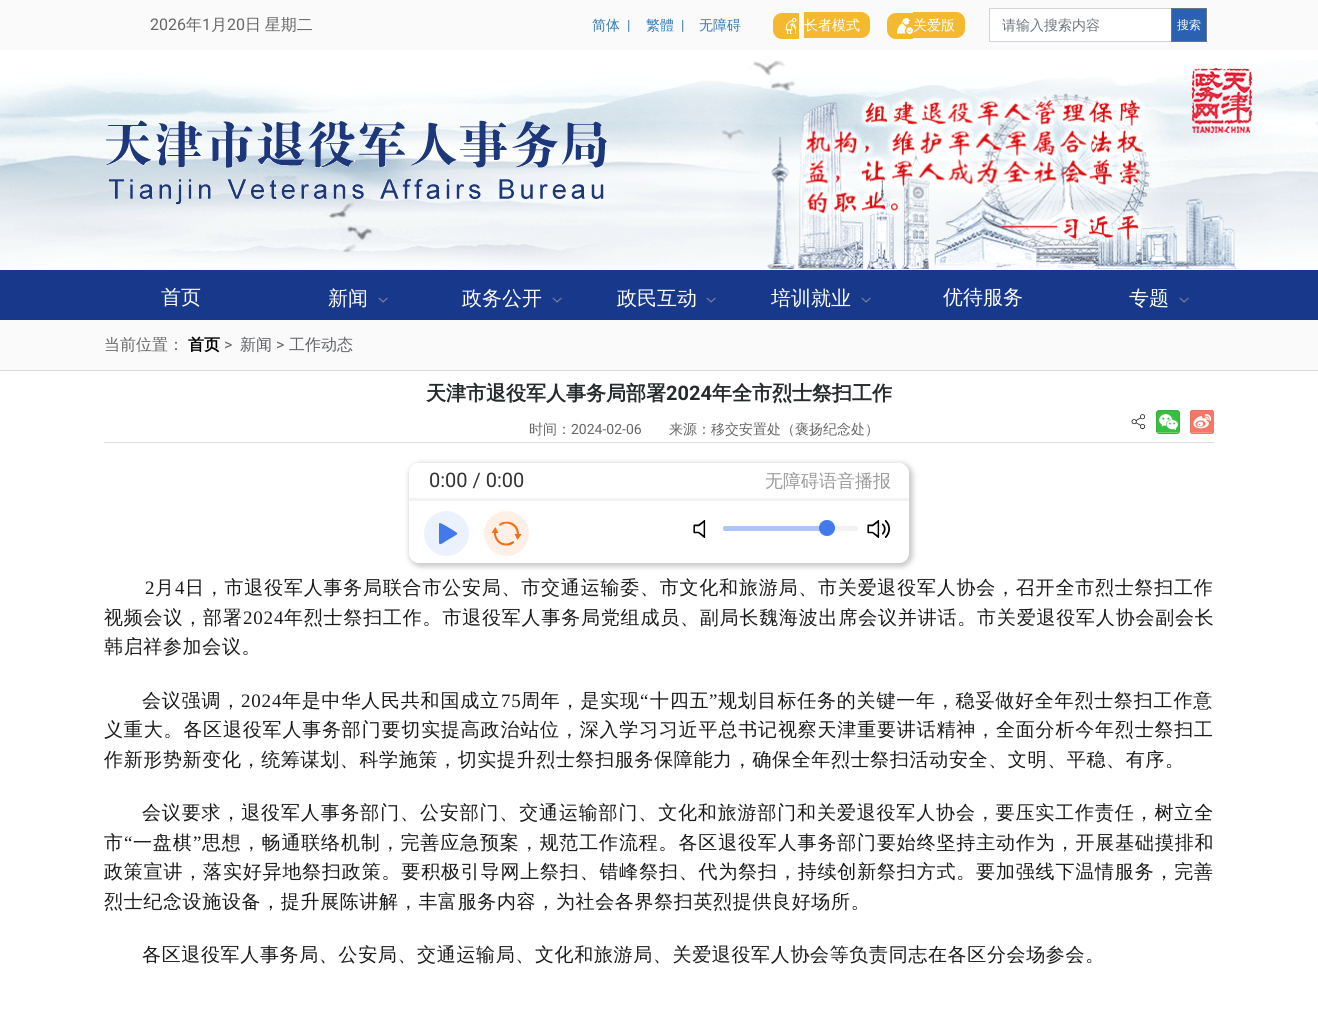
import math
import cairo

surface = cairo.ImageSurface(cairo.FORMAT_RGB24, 1318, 1028)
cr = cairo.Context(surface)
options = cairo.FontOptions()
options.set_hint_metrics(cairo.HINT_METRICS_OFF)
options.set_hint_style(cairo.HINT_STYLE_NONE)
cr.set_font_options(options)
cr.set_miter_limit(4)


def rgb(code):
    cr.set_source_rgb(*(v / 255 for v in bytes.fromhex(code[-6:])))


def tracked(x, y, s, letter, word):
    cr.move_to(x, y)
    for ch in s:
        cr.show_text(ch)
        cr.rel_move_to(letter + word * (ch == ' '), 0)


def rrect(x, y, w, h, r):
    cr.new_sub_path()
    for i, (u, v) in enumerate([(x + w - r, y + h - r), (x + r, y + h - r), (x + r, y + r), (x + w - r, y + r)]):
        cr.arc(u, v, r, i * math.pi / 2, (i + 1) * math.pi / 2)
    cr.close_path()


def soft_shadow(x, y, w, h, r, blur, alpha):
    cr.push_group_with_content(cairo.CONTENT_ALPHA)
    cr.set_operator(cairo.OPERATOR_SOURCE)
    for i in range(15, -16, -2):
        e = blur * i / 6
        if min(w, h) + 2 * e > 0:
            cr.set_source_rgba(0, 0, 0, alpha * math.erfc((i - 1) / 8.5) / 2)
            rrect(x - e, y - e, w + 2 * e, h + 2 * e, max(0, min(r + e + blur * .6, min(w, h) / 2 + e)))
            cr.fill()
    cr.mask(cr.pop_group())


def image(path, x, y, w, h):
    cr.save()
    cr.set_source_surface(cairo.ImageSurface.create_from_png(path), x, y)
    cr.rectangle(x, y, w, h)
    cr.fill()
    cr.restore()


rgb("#ffffff")
cr.paint()
rgb("#fafafa")
cr.rectangle(0, 0, 1318, 50)
cr.fill()
rgb("#f4ba2f")
cr.new_path()
cr.move_to(782, 13)
cr.line_to(799, 13)
cr.line_to(799, 39)
cr.line_to(782, 39)
cr.curve_to(777, 39, 773, 35, 773, 30)
cr.line_to(773, 22)
cr.curve_to(773, 17, 777, 13, 782, 13)
cr.close_path()
cr.fill()
image("img/1.png", 785, 18, 12, 16)
cr.new_path()
cr.move_to(804, 12)
cr.line_to(861, 12)
cr.curve_to(866, 12, 870, 16, 870, 21)
cr.line_to(870, 29)
cr.curve_to(870, 34, 866, 38, 861, 38)
cr.line_to(804, 38)
cr.close_path()
cr.fill()
cr.new_path()
cr.move_to(896, 13)
cr.line_to(913, 13)
cr.line_to(913, 39)
cr.line_to(896, 39)
cr.curve_to(891, 39, 887, 35, 887, 30)
cr.line_to(887, 22)
cr.curve_to(887, 17, 891, 13, 896, 13)
cr.close_path()
cr.fill()
image("img/2.png", 897, 18, 16, 16)
cr.new_path()
cr.move_to(913, 12)
cr.line_to(956, 12)
cr.curve_to(961, 12, 965, 16, 965, 21)
cr.line_to(965, 29)
cr.curve_to(965, 34, 961, 38, 956, 38)
cr.line_to(913, 38)
cr.close_path()
cr.fill()
rgb("#ffffff")
cr.rectangle(989.5, 8.5, 182, 33)
cr.fill_preserve()
rgb("#ced4da")
cr.set_line_width(1)
cr.stroke()
rgb("#2b61b3")
cr.rectangle(1171.5, 8.5, 35, 33)
cr.fill_preserve()
rgb("#6c757d")
cr.stroke()
image("img/3.png", 0, 60, 1318, 210)
image("img/4.png", 1192, 68, 60, 65)
image("img/5.png", 105, 120, 502, 85)
rgb("#18388c")
cr.rectangle(0, 270, 1318, 50)
cr.fill()
image("img/6.png", 378, 297, 10, 6)
image("img/6.png", 552, 297, 10, 6)
image("img/6.png", 706, 297, 10, 6)
image("img/6.png", 861, 297, 10, 6)
image("img/6.png", 1179, 297, 10, 6)
for x, y, w, h, color in [
    (0, 320, 1318, 50, "#fafafa"),
    (0, 370, 1318, 1, "#dadada"),
    (104, 442, 1110, 1, "#dddddd"),
]:
    rgb(color)
    cr.rectangle(x, y, w, h)
    cr.fill()
image("img/7.png", 1131, 414, 14, 15)
image("img/8.png", 1156, 410, 24, 24)
image("img/9.png", 1190, 410, 24, 24)
cr.save()
cr.set_fill_rule(cairo.FILL_RULE_EVEN_ODD)
cr.new_path()
cr.move_to(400, 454)
cr.line_to(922, 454)
cr.line_to(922, 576)
cr.line_to(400, 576)
cr.close_path()
cr.move_to(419, 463)
cr.line_to(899, 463)
cr.curve_to(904.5, 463, 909, 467.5, 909, 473)
cr.line_to(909, 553)
cr.curve_to(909, 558.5, 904.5, 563, 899, 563)
cr.line_to(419, 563)
cr.curve_to(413.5, 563, 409, 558.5, 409, 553)
cr.line_to(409, 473)
cr.curve_to(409, 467.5, 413.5, 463, 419, 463)
cr.close_path()
cr.clip()
rgb("#cccccc")
soft_shadow(409, 463, 504, 104, 12, 2.5, 1)
cr.restore()
rgb("#f2f2f2")
rrect(409, 498, 500, 3, 1.5)
cr.fill()
rgb("#ecf2fd")
cr.arc(446.5, 533.5, 22.5, 0, 2 * math.pi)
cr.fill()
rgb("#437aeb")
cr.set_fill_rule(cairo.FILL_RULE_EVEN_ODD)
cr.new_path()
cr.move_to(456.5, 532.5)
cr.curve_to(454.5, 531, 441.5, 523, 440, 523)
cr.line_to(439, 523.5)
cr.line_to(439, 543)
cr.line_to(439.5, 544)
cr.curve_to(441, 545, 445, 541.5, 446, 541)
cr.line_to(451, 538)
cr.curve_to(454.5, 536, 459, 534, 456.5, 532.5)
cr.close_path()
cr.fill()
image("img/10.png", 484, 511, 45, 45)
image("img/11.png", 693, 520, 13, 18)
rgb("#f2f2f2")
rrect(723, 526, 135, 5, 2)
cr.fill()
rgb("#afc5fa")
rrect(723, 526, 101, 5, 2)
cr.fill()
rgb("#437aeb")
cr.arc(827, 528, 7.5, 0, 2 * math.pi)
cr.fill_preserve()
cr.stroke()
image("img/12.png", 867, 520, 23, 18)
cr.select_font_face("Roboto")
cr.set_font_size(16)
rgb("#666666")
cr.move_to(150, 30)
cr.show_text("2026")
cr.select_font_face("WenQuanYi Zen Hei Medium")
cr.move_to(186, 30)
cr.show_text("年")
cr.select_font_face("Roboto")
cr.move_to(202, 30)
cr.show_text("1")
cr.select_font_face("WenQuanYi Zen Hei Medium")
cr.move_to(211, 30)
cr.show_text("月")
cr.select_font_face("Roboto")
cr.move_to(227, 30)
cr.show_text("20")
cr.select_font_face("WenQuanYi Zen Hei Medium")
tracked(245, 30, "日 星期二", 0, -1)
cr.set_font_size(14)
rgb("#337ab7")
cr.move_to(592, 30)
cr.show_text("简体")
cr.select_font_face("Roboto")
cr.move_to(627, 30)
cr.show_text("|")
cr.select_font_face("WenQuanYi Zen Hei Medium")
cr.move_to(646, 30)
cr.show_text("繁體")
cr.select_font_face("Roboto")
cr.move_to(681, 30)
cr.show_text("|")
cr.select_font_face("WenQuanYi Zen Hei Medium")
cr.move_to(699, 30)
cr.show_text("无障碍")
rgb("#ffffff")
cr.move_to(804, 30)
cr.show_text("长者模式")
cr.move_to(913, 30)
cr.show_text("关爱版")
rgb("#6c757d")
cr.move_to(1002, 30)
cr.show_text("请输入搜索内容")
cr.set_font_size(12)
rgb("#ffffff")
cr.move_to(1177, 29)
cr.show_text("搜索")
cr.set_font_size(20)
for x, y, s in [
    (161, 304, "首页"),
    (328, 305, "新闻"),
    (462, 305, "政务公开"),
    (617, 305, "政民互动"),
    (771, 305, "培训就业"),
    (943, 304, "优待服务"),
    (1129, 305, "专题"),
]:
    cr.move_to(x, y)
    cr.show_text(s)
cr.set_font_size(16)
rgb("#666666")
cr.move_to(104, 350)
cr.show_text("当前位置：")
cr.select_font_face("WenQuanYi Zen Hei", cairo.FONT_SLANT_NORMAL, cairo.FONT_WEIGHT_BOLD)
rgb("#000000")
cr.move_to(188, 350)
cr.show_text("首页")
cr.select_font_face("Roboto")
rgb("#666666")
cr.move_to(224, 350)
cr.show_text(">")
cr.select_font_face("WenQuanYi Zen Hei Medium")
rgb("#606266")
cr.move_to(240, 350)
cr.show_text("新闻")
cr.select_font_face("Roboto")
rgb("#666666")
cr.move_to(276, 350)
cr.show_text(">")
cr.select_font_face("WenQuanYi Zen Hei Medium")
rgb("#606266")
cr.move_to(289, 350)
cr.show_text("工作动态")
cr.select_font_face("WenQuanYi Zen Hei", cairo.FONT_SLANT_NORMAL, cairo.FONT_WEIGHT_BOLD)
cr.set_font_size(20)
rgb("#252a2d")
cr.move_to(426, 400)
cr.show_text("天津市退役军人事务局部署")
cr.select_font_face("Roboto", cairo.FONT_SLANT_NORMAL, cairo.FONT_WEIGHT_BOLD)
cr.move_to(666, 400)
cr.show_text("2024")
cr.select_font_face("WenQuanYi Zen Hei", cairo.FONT_SLANT_NORMAL, cairo.FONT_WEIGHT_BOLD)
cr.move_to(712, 400)
cr.show_text("年全市烈士祭扫工作")
cr.select_font_face("WenQuanYi Zen Hei Medium")
cr.set_font_size(14)
rgb("#666666")
cr.move_to(529, 434)
cr.show_text("时间：")
cr.select_font_face("Roboto")
cr.move_to(571, 434)
cr.show_text("2024-02-06")
cr.select_font_face("WenQuanYi Zen Hei Medium")
cr.move_to(669, 434)
cr.show_text("来源：移交安置处（褒扬纪念处）")
cr.select_font_face("Roboto")
cr.set_font_size(20)
rgb("#333333")
cr.move_to(429, 487)
cr.show_text("0:00 / 0:00")
cr.select_font_face("WenQuanYi Zen Hei Medium")
cr.set_font_size(18)
rgb("#9a9a9a")
cr.move_to(765, 487)
cr.show_text("无障碍语音播报")
cr.select_font_face("Liberation Serif")
cr.set_font_size(19)
rgb("#1a1a1a")
tracked(145, 594, "2", 0.78, 0)
cr.select_font_face("WenQuanYi Zen Hei Medium")
tracked(155, 594, "月", 0.78, 0)
cr.select_font_face("Liberation Serif")
tracked(175, 594, "4", 0.78, 0)
cr.select_font_face("WenQuanYi Zen Hei Medium")
tracked(185, 594, "日，市退役军人事务局联合市公安局、市交通运输委、市文化和旅游局、市关爱退役军人协会，召开全市烈士祭扫工作", 0.78, 0)
tracked(104, 624, "视频会议，部署", 0.8, 0)
cr.select_font_face("Liberation Serif")
tracked(243, 624, "2024", 0.8, 0)
cr.select_font_face("WenQuanYi Zen Hei Medium")
tracked(284, 624, "年烈士祭扫工作。市退役军人事务局党组成员、副局长魏海波出席会议并讲话。市关爱退役军人协会副会长", 0.8, 0)
tracked(104, 653, "韩启祥参加会议。", 0.65, 0)
tracked(142, 707, "会议强调，", 0.8, 0)
cr.select_font_face("Liberation Serif")
tracked(241, 707, "2024", 0.8, 0)
cr.select_font_face("WenQuanYi Zen Hei Medium")
tracked(282, 707, "年是中华人民共和国成立", 0.8, 0)
cr.select_font_face("Liberation Serif")
tracked(501, 707, "75", 0.8, 0)
cr.select_font_face("WenQuanYi Zen Hei Medium")
tracked(521, 707, "周年，是实现", 0.8, 0)
cr.select_font_face("Liberation Serif")
tracked(640, 707, "“", 0.8, 0)
cr.select_font_face("WenQuanYi Zen Hei Medium")
tracked(650, 707, "十四五", 0.8, 0)
cr.select_font_face("Liberation Serif")
tracked(709, 707, "”", 0.8, 0)
cr.select_font_face("WenQuanYi Zen Hei Medium")
tracked(718, 707, "规划目标任务的关键一年，稳妥做好全年烈士祭扫工作意", 0.8, 0)
tracked(104, 736, "义重大。各区退役军人事务部门要切实提高政治站位，深入学习习近平总书记视察天津重要讲话精神，全面分析今年烈士祭扫工", 0.82, 0)
tracked(104, 766, "作新形势新变化，统筹谋划、科学施策，切实提升烈士祭扫服务保障能力，确保全年烈士祭扫活动安全、文明、平稳、有序。", 0.65, 0)
tracked(142, 819, "会议要求，退役军人事务部门、公安部门、交通运输部门、文化和旅游部门和关爱退役军人协会，要压实工作责任，树立全", 0.85, 0)
tracked(104, 849, "市", 0.85, 0)
cr.select_font_face("Liberation Serif")
tracked(124, 849, "“", 0.85, 0)
cr.select_font_face("WenQuanYi Zen Hei Medium")
tracked(133, 849, "一盘棋", 0.85, 0)
cr.select_font_face("Liberation Serif")
tracked(193, 849, "”", 0.85, 0)
cr.select_font_face("WenQuanYi Zen Hei Medium")
tracked(202, 849, "思想，畅通联络机制，完善应急预案，规范工作流程。各区退役军人事务部门要始终坚持主动作为，开展基础摸排和", 0.85, 0)
tracked(104, 878, "政策宣讲，落实好异地祭扫政策。要积极引导网上祭扫、错峰祭扫、代为祭扫，持续创新祭扫方式。要加强线下温情服务，完善", 0.82, 0)
tracked(104, 908, "烈士纪念设施设备，提升展陈讲解，丰富服务内容，为社会各界祭扫英烈提供良好场所。", 0.65, 0)
tracked(142, 961, "各区退役军人事务局、公安局、交通运输局、文化和旅游局、关爱退役军人协会等负责同志在各区分会场参会。", 0.65, 0)
surface.write_to_png("page.png")
